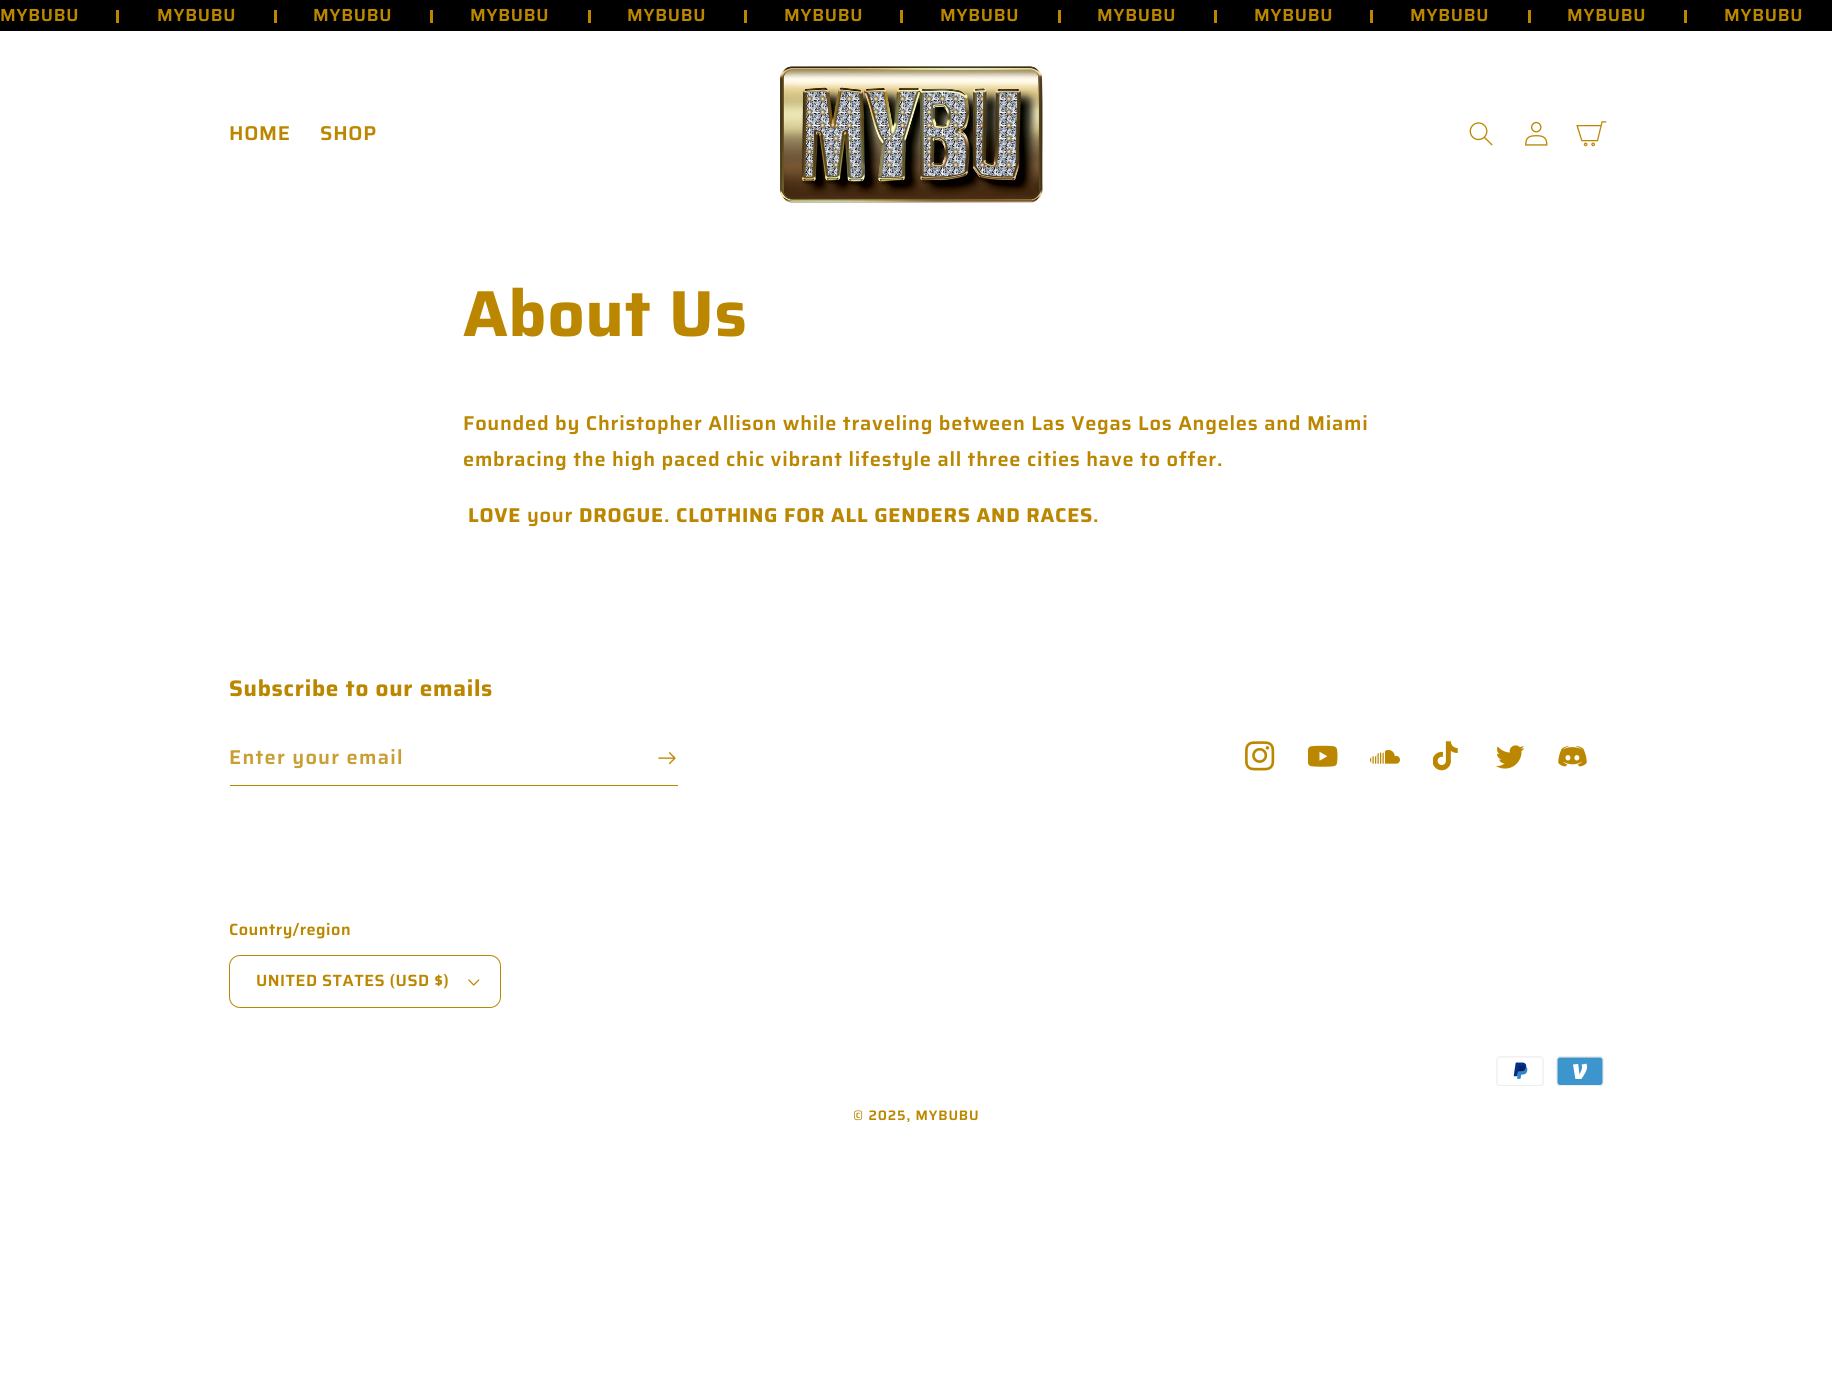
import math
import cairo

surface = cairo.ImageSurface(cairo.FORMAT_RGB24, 1832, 1381)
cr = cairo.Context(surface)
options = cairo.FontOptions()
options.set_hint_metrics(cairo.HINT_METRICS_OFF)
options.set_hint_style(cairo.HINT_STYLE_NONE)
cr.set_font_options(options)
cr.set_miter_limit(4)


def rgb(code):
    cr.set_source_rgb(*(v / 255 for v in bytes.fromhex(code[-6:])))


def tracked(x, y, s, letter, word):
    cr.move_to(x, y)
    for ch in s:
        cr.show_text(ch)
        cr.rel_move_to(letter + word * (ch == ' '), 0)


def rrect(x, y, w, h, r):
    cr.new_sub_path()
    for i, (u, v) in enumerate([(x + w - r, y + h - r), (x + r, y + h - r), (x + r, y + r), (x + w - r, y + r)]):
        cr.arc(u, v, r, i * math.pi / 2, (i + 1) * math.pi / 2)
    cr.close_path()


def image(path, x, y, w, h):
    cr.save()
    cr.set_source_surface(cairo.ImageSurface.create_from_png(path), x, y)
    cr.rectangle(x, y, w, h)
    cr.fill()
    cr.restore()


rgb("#ffffff")
cr.paint()
for x, y, w, h, color in [
    (0, 0, 1832, 31, "#000000"),
    (116, 10, 3, 13, "#bc8700"),
    (274, 10, 3, 13, "#bc8700"),
    (430, 10, 3, 13, "#bc8700"),
    (588, 10, 3, 13, "#bc8700"),
    (744, 10, 3, 13, "#bc8700"),
    (900, 10, 3, 13, "#bc8700"),
    (1058, 10, 3, 13, "#bc8700"),
    (1214, 10, 3, 13, "#bc8700"),
    (1370, 10, 3, 13, "#bc8700"),
    (1528, 10, 3, 13, "#bc8700"),
    (1684, 10, 3, 13, "#bc8700"),
]:
    rgb(color)
    cr.rectangle(x, y, w, h)
    cr.fill()
image("img/1.png", 780, 66, 263, 137)
image("img/2.png", 1469, 122, 24, 24)
image("img/3.png", 1525, 121, 23, 25)
image("img/4.png", 1576, 121, 31, 26)
image("img/5.png", 658, 752, 18, 13)
cr.rectangle(230, 785, 448, 1)
cr.fill()
image("img/6.png", 1245, 741, 30, 30)
image("img/7.png", 1308, 745, 30, 22)
image("img/8.png", 1370, 749, 30, 15)
image("img/9.png", 1433, 741, 25, 30)
image("img/10.png", 1496, 745, 29, 24)
image("img/11.png", 1558, 746, 29, 21)
rrect(229.5, 955.5, 271, 52, 10.5)
cr.set_line_width(1)
cr.stroke()
image("img/12.png", 468, 979, 12, 7)
image("img/13.png", 1496, 1056, 48, 30)
image("img/14.png", 1556, 1056, 48, 30)
cr.select_font_face("Saira SemiBold")
cr.set_font_size(17.5)
for x, y, s in [
    (0, 21, "MYBUBU"),
    (157, 21, "MYBUBU"),
    (313, 21, "MYBUBU"),
    (470, 21, "MYBUBU"),
    (627, 21, "MYBUBU"),
    (784, 21, "MYBUBU"),
    (940, 21, "MYBUBU"),
    (1097, 21, "MYBUBU"),
    (1254, 21, "MYBUBU"),
    (1410, 21, "MYBUBU"),
    (1567, 21, "MYBUBU"),
    (1724, 21, "MYBUBU"),
]:
    tracked(x, y, s, 0.75, 0)
cr.set_font_size(20)
tracked(229, 140, "HOME", 0.75, 0)
tracked(320, 140, "SHOP", 0.75, 0)
cr.select_font_face("Saira", cairo.FONT_SLANT_NORMAL, cairo.FONT_WEIGHT_BOLD)
cr.set_font_size(65)
tracked(463, 336, "About Us", 0.75, 0)
cr.select_font_face("Saira SemiBold")
cr.set_font_size(20)
tracked(463, 430, "Founded by Christopher Allison while traveling between Las Vegas Los Angeles and Miami", 0.75, 0)
tracked(463, 466, "embracing the high paced chic vibrant lifestyle all three cities have to offer.", 0.75, 0)
cr.select_font_face("Saira", cairo.FONT_SLANT_NORMAL, cairo.FONT_WEIGHT_BOLD)
tracked(468, 522, "LOVE", 0.75, 0)
cr.select_font_face("Saira SemiBold")
tracked(527, 522, "your", 0.75, 0)
cr.select_font_face("Saira", cairo.FONT_SLANT_NORMAL, cairo.FONT_WEIGHT_BOLD)
tracked(579, 522, "DROGUE", 0.75, 0)
cr.select_font_face("Saira SemiBold")
tracked(664, 522, ".", 0.75, 0)
cr.select_font_face("Saira", cairo.FONT_SLANT_NORMAL, cairo.FONT_WEIGHT_BOLD)
tracked(676, 522, "CLOTHING FOR ALL GENDERS AND RACES", 0.75, 0)
cr.select_font_face("Saira SemiBold")
tracked(1093, 522, ".", 0.75, 0)
cr.select_font_face("Saira", cairo.FONT_SLANT_NORMAL, cairo.FONT_WEIGHT_BOLD)
cr.set_font_size(22.5)
tracked(229, 696, "Subscribe to our emails", 0.75, 0)
cr.select_font_face("Saira SemiBold")
cr.set_font_size(20)
rgb("#c99f33")
tracked(229, 764, "Enter your email", 1.25, 0)
cr.set_font_size(16.25)
rgb("#bc8700")
tracked(229, 935, "Country/region", 0.5, 0)
tracked(256, 986, "UNITED STATES (USD $)", 0.5, 0)
cr.set_font_size(13.75)
tracked(853, 1120, "© 2025, MYBUBU", 0.9, 0)
surface.write_to_png("page.png")
